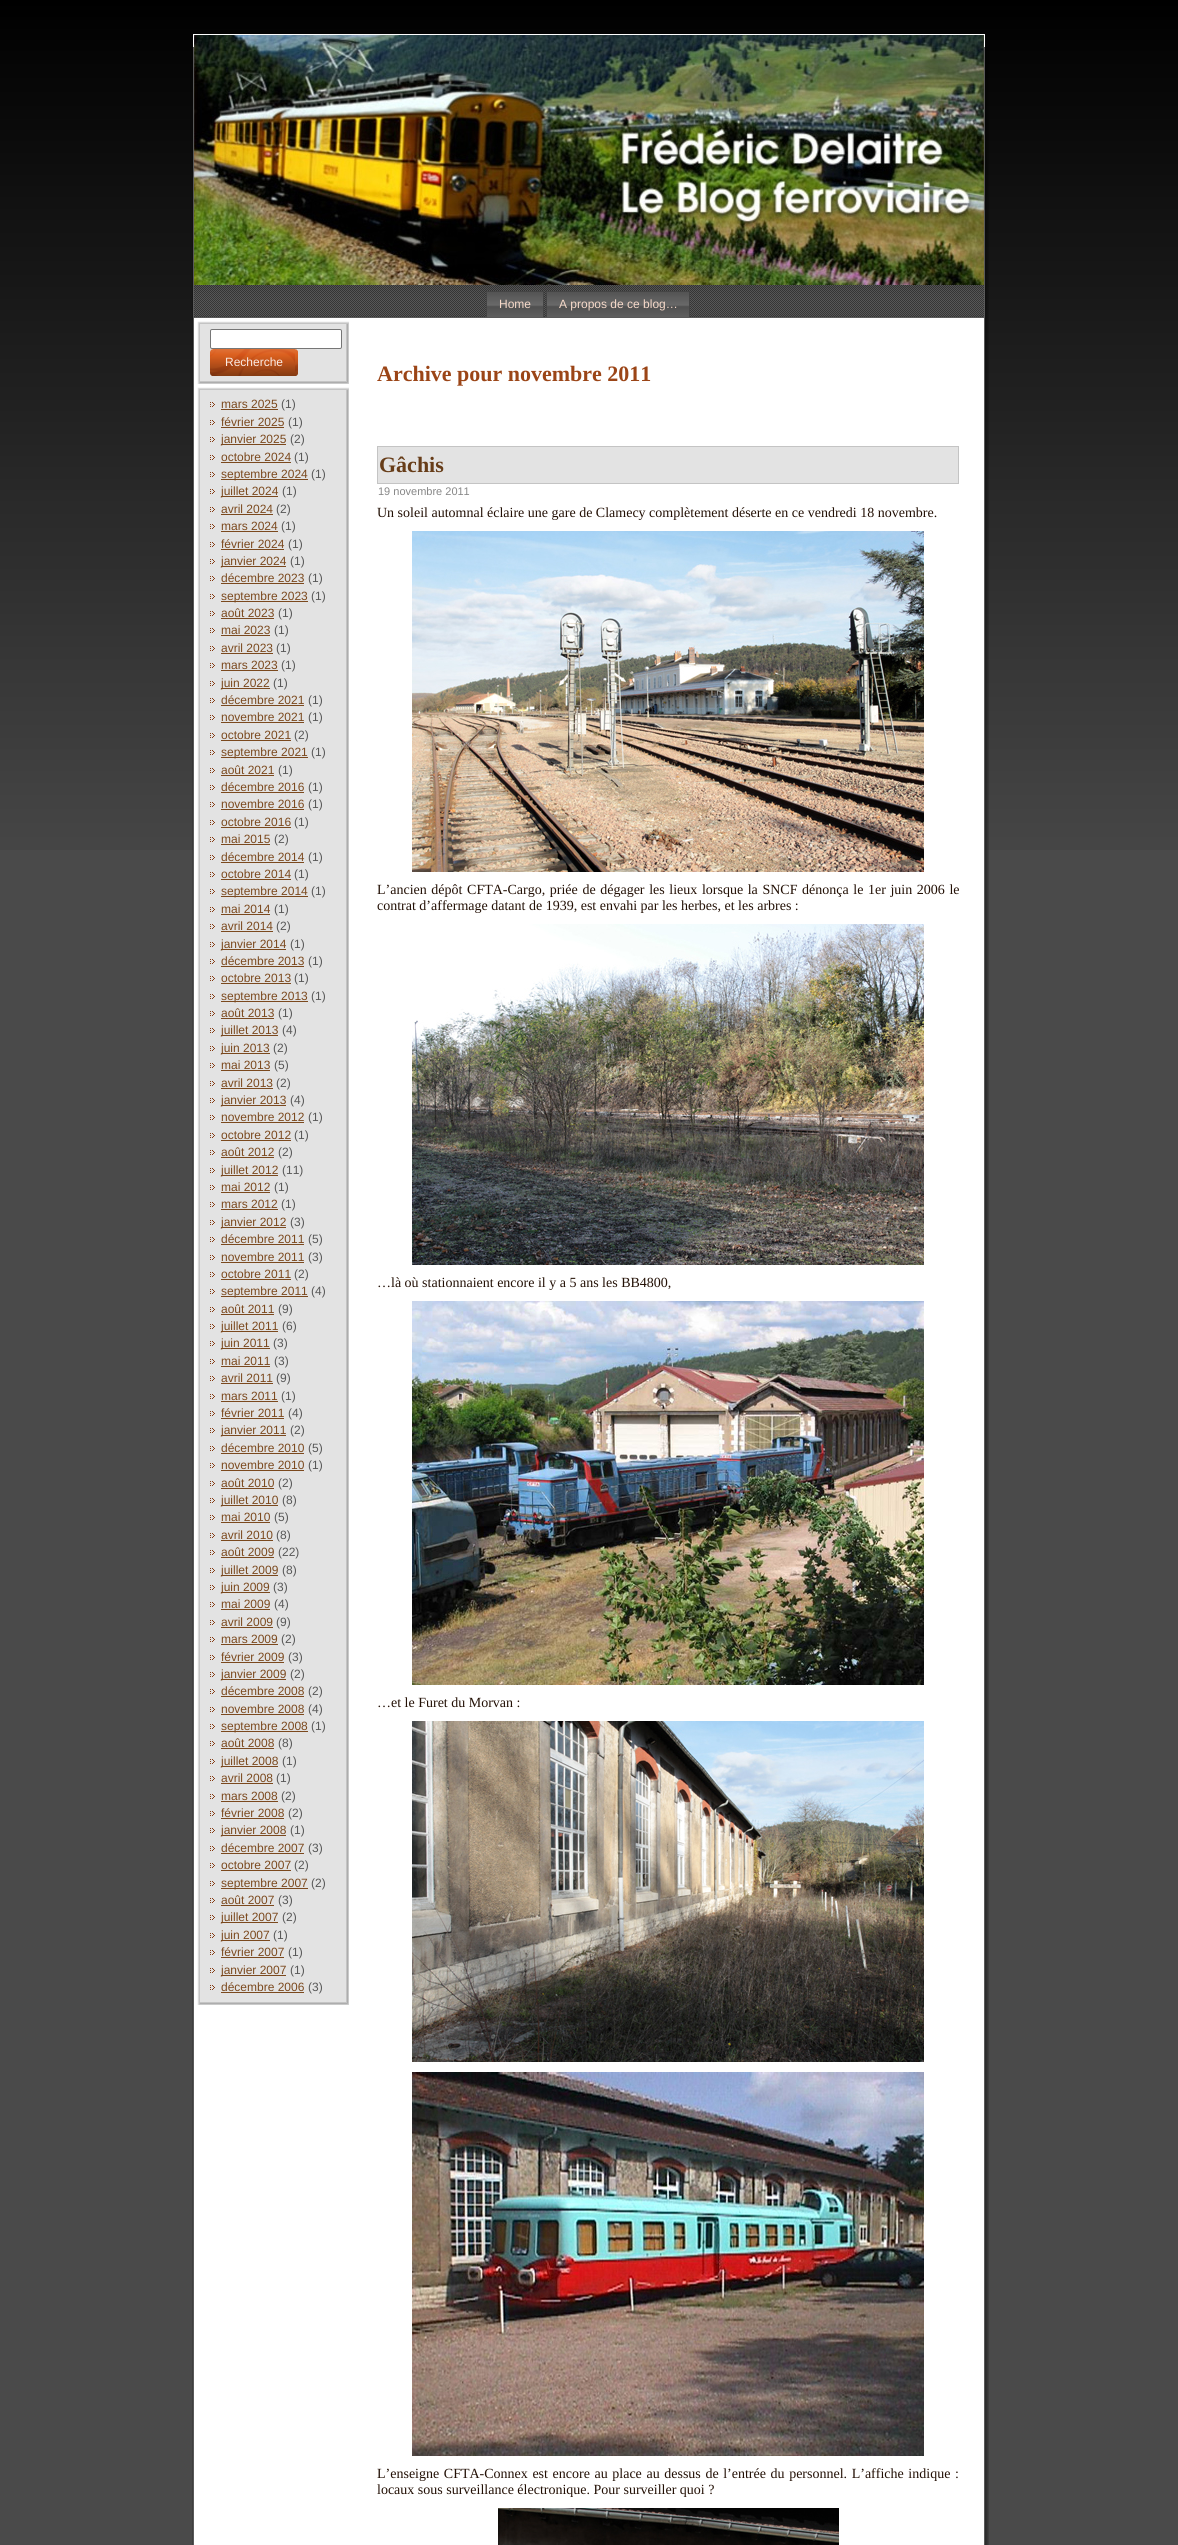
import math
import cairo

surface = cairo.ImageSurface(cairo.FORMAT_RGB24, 1178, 2545)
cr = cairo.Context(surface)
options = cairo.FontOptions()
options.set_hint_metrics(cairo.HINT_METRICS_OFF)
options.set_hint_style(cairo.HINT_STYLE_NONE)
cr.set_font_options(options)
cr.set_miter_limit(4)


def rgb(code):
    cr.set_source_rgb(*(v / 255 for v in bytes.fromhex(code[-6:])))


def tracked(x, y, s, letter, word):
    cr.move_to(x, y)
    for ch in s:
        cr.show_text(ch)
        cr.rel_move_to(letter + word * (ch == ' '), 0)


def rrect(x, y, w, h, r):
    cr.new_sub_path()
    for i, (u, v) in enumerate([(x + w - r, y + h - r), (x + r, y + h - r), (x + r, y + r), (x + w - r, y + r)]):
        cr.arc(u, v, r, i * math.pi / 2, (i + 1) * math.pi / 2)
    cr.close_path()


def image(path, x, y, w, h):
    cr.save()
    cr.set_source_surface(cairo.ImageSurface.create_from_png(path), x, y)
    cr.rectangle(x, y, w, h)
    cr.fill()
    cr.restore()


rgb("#4a4a4a")
cr.paint()
image("img/1.png", 0, 0, 1178, 850)
for x, y, w, h, color in [
    (193, 34, 13, 13, "#ffffff"),
    (206, 34, 766, 1, "#ffffff"),
    (972, 34, 13, 13, "#ffffff"),
]:
    rgb(color)
    cr.rectangle(x, y, w, h)
    cr.fill()
image("img/2.png", 192, 47, 14, 2498)
image("img/27.png", 972, 47, 17, 2498)
image("img/3.png", 194, 35, 790, 250)
image("img/4.png", 194, 285, 790, 33)
image("img/5.png", 486, 291, 57, 26)
image("img/6.png", 543, 291, 1, 26)
image("img/7.png", 546, 291, 143, 26)
image("img/6.png", 689, 291, 1, 26)
image("img/8.png", 197, 321, 9, 9)
cr.rectangle(206, 318, 766, 2227)
cr.fill()
image("img/9.png", 206, 321, 134, 9)
image("img/10.png", 340, 321, 9, 9)
image("img/11.png", 197, 330, 9, 45)
rgb("#e3e3e3")
cr.rectangle(206, 330, 134, 45)
cr.fill()
image("img/12.png", 340, 330, 9, 45)
rgb("#ffffff")
rrect(210.5, 329.5, 131, 19, 1.5)
cr.fill_preserve()
rgb("#767676")
cr.set_line_width(1)
cr.stroke()
image("img/16.png", 206, 375, 134, 9)
image("img/13.png", 210, 349, 85, 27)
image("img/14.png", 295, 349, 3, 27)
image("img/15.png", 197, 375, 9, 9)
image("img/17.png", 340, 375, 9, 9)
image("img/8.png", 197, 387, 9, 9)
image("img/9.png", 206, 387, 134, 9)
image("img/10.png", 340, 387, 9, 9)
image("img/18.png", 197, 396, 9, 1600)
rgb("#e3e3e3")
cr.rectangle(206, 396, 134, 1600)
cr.fill()
image("img/19.png", 340, 396, 9, 1600)
image("img/20.png", 210, 402, 5, 5)
rgb("#7b491e")
cr.rectangle(221, 409, 57, 1)
cr.fill()
image("img/20.png", 210, 420, 5, 5)
cr.rectangle(221, 427, 63, 1)
cr.fill()
image("img/20.png", 210, 437, 5, 5)
cr.rectangle(221, 444, 65, 1)
cr.fill()
image("img/20.png", 210, 455, 5, 5)
cr.rectangle(221, 462, 70, 1)
cr.fill()
image("img/20.png", 210, 472, 5, 5)
cr.rectangle(221, 479, 87, 1)
cr.fill()
image("img/20.png", 210, 489, 5, 5)
cr.rectangle(221, 496, 57, 1)
cr.fill()
image("img/20.png", 210, 507, 5, 5)
cr.rectangle(221, 514, 52, 1)
cr.fill()
image("img/20.png", 210, 524, 5, 5)
cr.rectangle(221, 531, 57, 1)
cr.fill()
image("img/20.png", 210, 542, 5, 5)
cr.rectangle(221, 549, 63, 1)
cr.fill()
image("img/20.png", 210, 559, 5, 5)
cr.rectangle(221, 566, 65, 1)
cr.fill()
image("img/20.png", 210, 576, 5, 5)
cr.rectangle(221, 583, 83, 1)
cr.fill()
image("img/20.png", 210, 594, 5, 5)
cr.rectangle(221, 601, 87, 1)
cr.fill()
image("img/20.png", 210, 611, 5, 5)
cr.rectangle(221, 618, 53, 1)
cr.fill()
image("img/20.png", 210, 628, 5, 5)
cr.rectangle(221, 635, 49, 1)
cr.fill()
image("img/20.png", 210, 646, 5, 5)
cr.rectangle(221, 653, 52, 1)
cr.fill()
image("img/20.png", 210, 663, 5, 5)
cr.rectangle(221, 670, 57, 1)
cr.fill()
image("img/20.png", 210, 681, 5, 5)
cr.rectangle(221, 688, 49, 1)
cr.fill()
image("img/20.png", 210, 698, 5, 5)
cr.rectangle(221, 705, 83, 1)
cr.fill()
image("img/20.png", 210, 715, 5, 5)
cr.rectangle(221, 722, 83, 1)
cr.fill()
image("img/20.png", 210, 733, 5, 5)
cr.rectangle(221, 740, 70, 1)
cr.fill()
image("img/20.png", 210, 750, 5, 5)
cr.rectangle(221, 757, 87, 1)
cr.fill()
image("img/20.png", 210, 768, 5, 5)
cr.rectangle(221, 775, 53, 1)
cr.fill()
image("img/20.png", 210, 785, 5, 5)
cr.rectangle(221, 792, 83, 1)
cr.fill()
image("img/20.png", 210, 802, 5, 5)
cr.rectangle(221, 809, 83, 1)
cr.fill()
image("img/20.png", 210, 820, 5, 5)
cr.rectangle(221, 827, 70, 1)
cr.fill()
image("img/20.png", 210, 837, 5, 5)
cr.rectangle(221, 844, 49, 1)
cr.fill()
image("img/20.png", 210, 855, 5, 5)
cr.rectangle(221, 862, 83, 1)
cr.fill()
image("img/20.png", 210, 872, 5, 5)
cr.rectangle(221, 879, 70, 1)
cr.fill()
image("img/20.png", 210, 889, 5, 5)
cr.rectangle(221, 896, 87, 1)
cr.fill()
image("img/20.png", 210, 907, 5, 5)
cr.rectangle(221, 914, 49, 1)
cr.fill()
image("img/20.png", 210, 924, 5, 5)
cr.rectangle(221, 931, 52, 1)
cr.fill()
image("img/20.png", 210, 942, 5, 5)
cr.rectangle(221, 949, 65, 1)
cr.fill()
image("img/20.png", 210, 959, 5, 5)
cr.rectangle(221, 966, 83, 1)
cr.fill()
image("img/20.png", 210, 976, 5, 5)
cr.rectangle(221, 983, 70, 1)
cr.fill()
image("img/20.png", 210, 994, 5, 5)
cr.rectangle(221, 1001, 87, 1)
cr.fill()
image("img/20.png", 210, 1011, 5, 5)
cr.rectangle(221, 1018, 53, 1)
cr.fill()
image("img/20.png", 210, 1028, 5, 5)
cr.rectangle(221, 1035, 57, 1)
cr.fill()
image("img/20.png", 210, 1046, 5, 5)
cr.rectangle(221, 1053, 49, 1)
cr.fill()
image("img/20.png", 210, 1063, 5, 5)
cr.rectangle(221, 1070, 49, 1)
cr.fill()
image("img/20.png", 210, 1081, 5, 5)
cr.rectangle(221, 1088, 52, 1)
cr.fill()
image("img/20.png", 210, 1098, 5, 5)
cr.rectangle(221, 1105, 65, 1)
cr.fill()
image("img/20.png", 210, 1115, 5, 5)
cr.rectangle(221, 1122, 83, 1)
cr.fill()
image("img/20.png", 210, 1133, 5, 5)
cr.rectangle(221, 1140, 70, 1)
cr.fill()
image("img/20.png", 210, 1150, 5, 5)
cr.rectangle(221, 1157, 53, 1)
cr.fill()
image("img/20.png", 210, 1168, 5, 5)
cr.rectangle(221, 1175, 57, 1)
cr.fill()
image("img/20.png", 210, 1185, 5, 5)
cr.rectangle(221, 1192, 49, 1)
cr.fill()
image("img/20.png", 210, 1202, 5, 5)
cr.rectangle(221, 1209, 57, 1)
cr.fill()
image("img/20.png", 210, 1220, 5, 5)
cr.rectangle(221, 1227, 65, 1)
cr.fill()
image("img/20.png", 210, 1237, 5, 5)
cr.rectangle(221, 1244, 83, 1)
cr.fill()
image("img/20.png", 210, 1255, 5, 5)
cr.rectangle(221, 1262, 83, 1)
cr.fill()
image("img/20.png", 210, 1272, 5, 5)
cr.rectangle(221, 1279, 70, 1)
cr.fill()
image("img/20.png", 210, 1289, 5, 5)
cr.rectangle(221, 1296, 87, 1)
cr.fill()
image("img/20.png", 210, 1307, 5, 5)
cr.rectangle(221, 1314, 53, 1)
cr.fill()
image("img/20.png", 210, 1324, 5, 5)
cr.rectangle(221, 1331, 57, 1)
cr.fill()
image("img/20.png", 210, 1341, 5, 5)
cr.rectangle(221, 1348, 49, 1)
cr.fill()
image("img/20.png", 210, 1359, 5, 5)
cr.rectangle(221, 1366, 49, 1)
cr.fill()
image("img/20.png", 210, 1376, 5, 5)
cr.rectangle(221, 1383, 52, 1)
cr.fill()
image("img/20.png", 210, 1394, 5, 5)
cr.rectangle(221, 1401, 57, 1)
cr.fill()
image("img/20.png", 210, 1411, 5, 5)
cr.rectangle(221, 1418, 63, 1)
cr.fill()
image("img/20.png", 210, 1428, 5, 5)
cr.rectangle(221, 1435, 65, 1)
cr.fill()
image("img/20.png", 210, 1446, 5, 5)
cr.rectangle(221, 1453, 83, 1)
cr.fill()
image("img/20.png", 210, 1463, 5, 5)
cr.rectangle(221, 1470, 83, 1)
cr.fill()
image("img/20.png", 210, 1481, 5, 5)
cr.rectangle(221, 1488, 53, 1)
cr.fill()
image("img/20.png", 210, 1498, 5, 5)
cr.rectangle(221, 1505, 57, 1)
cr.fill()
image("img/20.png", 210, 1515, 5, 5)
cr.rectangle(221, 1522, 49, 1)
cr.fill()
image("img/20.png", 210, 1533, 5, 5)
cr.rectangle(221, 1540, 52, 1)
cr.fill()
image("img/20.png", 210, 1550, 5, 5)
cr.rectangle(221, 1557, 53, 1)
cr.fill()
image("img/20.png", 210, 1568, 5, 5)
cr.rectangle(221, 1575, 57, 1)
cr.fill()
image("img/20.png", 210, 1585, 5, 5)
cr.rectangle(221, 1592, 49, 1)
cr.fill()
image("img/20.png", 210, 1602, 5, 5)
cr.rectangle(221, 1609, 49, 1)
cr.fill()
image("img/20.png", 210, 1620, 5, 5)
cr.rectangle(221, 1627, 52, 1)
cr.fill()
image("img/20.png", 210, 1637, 5, 5)
cr.rectangle(221, 1644, 57, 1)
cr.fill()
image("img/20.png", 210, 1655, 5, 5)
cr.rectangle(221, 1662, 63, 1)
cr.fill()
image("img/20.png", 210, 1672, 5, 5)
cr.rectangle(221, 1679, 65, 1)
cr.fill()
image("img/20.png", 210, 1689, 5, 5)
cr.rectangle(221, 1696, 83, 1)
cr.fill()
image("img/20.png", 210, 1707, 5, 5)
cr.rectangle(221, 1714, 83, 1)
cr.fill()
image("img/20.png", 210, 1724, 5, 5)
cr.rectangle(221, 1731, 87, 1)
cr.fill()
image("img/20.png", 210, 1741, 5, 5)
cr.rectangle(221, 1748, 53, 1)
cr.fill()
image("img/20.png", 210, 1759, 5, 5)
cr.rectangle(221, 1766, 57, 1)
cr.fill()
image("img/20.png", 210, 1776, 5, 5)
cr.rectangle(221, 1783, 52, 1)
cr.fill()
image("img/20.png", 210, 1794, 5, 5)
cr.rectangle(221, 1801, 57, 1)
cr.fill()
image("img/20.png", 210, 1811, 5, 5)
cr.rectangle(221, 1818, 63, 1)
cr.fill()
image("img/20.png", 210, 1828, 5, 5)
cr.rectangle(221, 1835, 65, 1)
cr.fill()
image("img/20.png", 210, 1846, 5, 5)
cr.rectangle(221, 1853, 83, 1)
cr.fill()
image("img/20.png", 210, 1863, 5, 5)
cr.rectangle(221, 1870, 70, 1)
cr.fill()
image("img/20.png", 210, 1881, 5, 5)
cr.rectangle(221, 1888, 87, 1)
cr.fill()
image("img/20.png", 210, 1898, 5, 5)
cr.rectangle(221, 1905, 53, 1)
cr.fill()
image("img/20.png", 210, 1915, 5, 5)
cr.rectangle(221, 1922, 57, 1)
cr.fill()
image("img/20.png", 210, 1933, 5, 5)
cr.rectangle(221, 1940, 49, 1)
cr.fill()
image("img/20.png", 210, 1950, 5, 5)
cr.rectangle(221, 1957, 63, 1)
cr.fill()
image("img/20.png", 210, 1968, 5, 5)
cr.rectangle(221, 1975, 65, 1)
cr.fill()
image("img/20.png", 210, 1985, 5, 5)
cr.rectangle(221, 1992, 83, 1)
cr.fill()
image("img/15.png", 197, 1996, 9, 9)
image("img/16.png", 206, 1996, 134, 9)
image("img/17.png", 340, 1996, 9, 9)
rgb("#e3e3e3")
cr.rectangle(377.5, 446.5, 581, 37)
cr.fill_preserve()
rgb("#c4c4c4")
cr.stroke()
image("img/21.png", 412, 531, 512, 341)
image("img/22.png", 412, 924, 512, 341)
image("img/23.png", 412, 1301, 512, 384)
image("img/24.png", 412, 1721, 512, 341)
image("img/25.png", 412, 2072, 512, 384)
image("img/26.png", 498, 2508, 341, 37)
cr.select_font_face("Liberation Sans")
cr.set_font_size(12)
rgb("#f7daca")
cr.move_to(499, 308)
cr.show_text("Home")
cr.move_to(559, 308)
cr.show_text("A propos de ce blog…")
rgb("#fbece4")
cr.move_to(225, 366)
cr.show_text("Recherche")
rgb("#7b491e")
cr.move_to(221, 408)
cr.show_text("mars 2025")
rgb("#575757")
cr.move_to(281, 408)
cr.show_text("(1)")
rgb("#7b491e")
cr.move_to(221, 426)
cr.show_text("février 2025")
rgb("#575757")
cr.move_to(288, 426)
cr.show_text("(1)")
rgb("#7b491e")
cr.move_to(221, 443)
cr.show_text("janvier 2025")
rgb("#575757")
cr.move_to(290, 443)
cr.show_text("(2)")
rgb("#7b491e")
cr.move_to(221, 461)
cr.show_text("octobre 2024")
rgb("#575757")
cr.move_to(294, 461)
cr.show_text("(1)")
rgb("#7b491e")
cr.move_to(221, 478)
cr.show_text("septembre 2024")
rgb("#575757")
cr.move_to(311, 478)
cr.show_text("(1)")
rgb("#7b491e")
cr.move_to(221, 495)
cr.show_text("juillet 2024")
rgb("#575757")
cr.move_to(282, 495)
cr.show_text("(1)")
rgb("#7b491e")
cr.move_to(221, 513)
cr.show_text("avril 2024")
rgb("#575757")
cr.move_to(276, 513)
cr.show_text("(2)")
rgb("#7b491e")
cr.move_to(221, 530)
cr.show_text("mars 2024")
rgb("#575757")
cr.move_to(281, 530)
cr.show_text("(1)")
rgb("#7b491e")
cr.move_to(221, 548)
cr.show_text("février 2024")
rgb("#575757")
cr.move_to(288, 548)
cr.show_text("(1)")
rgb("#7b491e")
cr.move_to(221, 565)
cr.show_text("janvier 2024")
rgb("#575757")
cr.move_to(290, 565)
cr.show_text("(1)")
rgb("#7b491e")
cr.move_to(221, 582)
cr.show_text("décembre 2023")
rgb("#575757")
cr.move_to(308, 582)
cr.show_text("(1)")
rgb("#7b491e")
cr.move_to(221, 600)
cr.show_text("septembre 2023")
rgb("#575757")
cr.move_to(311, 600)
cr.show_text("(1)")
rgb("#7b491e")
cr.move_to(221, 617)
cr.show_text("août 2023")
rgb("#575757")
cr.move_to(278, 617)
cr.show_text("(1)")
rgb("#7b491e")
cr.move_to(221, 634)
cr.show_text("mai 2023")
rgb("#575757")
cr.move_to(274, 634)
cr.show_text("(1)")
rgb("#7b491e")
cr.move_to(221, 652)
cr.show_text("avril 2023")
rgb("#575757")
cr.move_to(276, 652)
cr.show_text("(1)")
rgb("#7b491e")
cr.move_to(221, 669)
cr.show_text("mars 2023")
rgb("#575757")
cr.move_to(281, 669)
cr.show_text("(1)")
rgb("#7b491e")
cr.move_to(221, 687)
cr.show_text("juin 2022")
rgb("#575757")
cr.move_to(273, 687)
cr.show_text("(1)")
rgb("#7b491e")
cr.move_to(221, 704)
cr.show_text("décembre 2021")
rgb("#575757")
cr.move_to(308, 704)
cr.show_text("(1)")
rgb("#7b491e")
cr.move_to(221, 721)
cr.show_text("novembre 2021")
rgb("#575757")
cr.move_to(308, 721)
cr.show_text("(1)")
rgb("#7b491e")
cr.move_to(221, 739)
cr.show_text("octobre 2021")
rgb("#575757")
cr.move_to(294, 739)
cr.show_text("(2)")
rgb("#7b491e")
cr.move_to(221, 756)
cr.show_text("septembre 2021")
rgb("#575757")
cr.move_to(311, 756)
cr.show_text("(1)")
rgb("#7b491e")
cr.move_to(221, 774)
cr.show_text("août 2021")
rgb("#575757")
cr.move_to(278, 774)
cr.show_text("(1)")
rgb("#7b491e")
cr.move_to(221, 791)
cr.show_text("décembre 2016")
rgb("#575757")
cr.move_to(308, 791)
cr.show_text("(1)")
rgb("#7b491e")
cr.move_to(221, 808)
cr.show_text("novembre 2016")
rgb("#575757")
cr.move_to(308, 808)
cr.show_text("(1)")
rgb("#7b491e")
cr.move_to(221, 826)
cr.show_text("octobre 2016")
rgb("#575757")
cr.move_to(294, 826)
cr.show_text("(1)")
rgb("#7b491e")
cr.move_to(221, 843)
cr.show_text("mai 2015")
rgb("#575757")
cr.move_to(274, 843)
cr.show_text("(2)")
rgb("#7b491e")
cr.move_to(221, 861)
cr.show_text("décembre 2014")
rgb("#575757")
cr.move_to(308, 861)
cr.show_text("(1)")
rgb("#7b491e")
cr.move_to(221, 878)
cr.show_text("octobre 2014")
rgb("#575757")
cr.move_to(294, 878)
cr.show_text("(1)")
rgb("#7b491e")
cr.move_to(221, 895)
cr.show_text("septembre 2014")
rgb("#575757")
cr.move_to(311, 895)
cr.show_text("(1)")
rgb("#7b491e")
cr.move_to(221, 913)
cr.show_text("mai 2014")
rgb("#575757")
cr.move_to(274, 913)
cr.show_text("(1)")
rgb("#7b491e")
cr.move_to(221, 930)
cr.show_text("avril 2014")
rgb("#575757")
cr.move_to(276, 930)
cr.show_text("(2)")
rgb("#7b491e")
cr.move_to(221, 948)
cr.show_text("janvier 2014")
rgb("#575757")
cr.move_to(290, 948)
cr.show_text("(1)")
rgb("#7b491e")
cr.move_to(221, 965)
cr.show_text("décembre 2013")
rgb("#575757")
cr.move_to(308, 965)
cr.show_text("(1)")
rgb("#7b491e")
cr.move_to(221, 982)
cr.show_text("octobre 2013")
rgb("#575757")
cr.move_to(294, 982)
cr.show_text("(1)")
rgb("#7b491e")
cr.move_to(221, 1000)
cr.show_text("septembre 2013")
rgb("#575757")
cr.move_to(311, 1000)
cr.show_text("(1)")
rgb("#7b491e")
cr.move_to(221, 1017)
cr.show_text("août 2013")
rgb("#575757")
cr.move_to(278, 1017)
cr.show_text("(1)")
rgb("#7b491e")
cr.move_to(221, 1034)
cr.show_text("juillet 2013")
rgb("#575757")
cr.move_to(282, 1034)
cr.show_text("(4)")
rgb("#7b491e")
cr.move_to(221, 1052)
cr.show_text("juin 2013")
rgb("#575757")
cr.move_to(273, 1052)
cr.show_text("(2)")
rgb("#7b491e")
cr.move_to(221, 1069)
cr.show_text("mai 2013")
rgb("#575757")
cr.move_to(274, 1069)
cr.show_text("(5)")
rgb("#7b491e")
cr.move_to(221, 1087)
cr.show_text("avril 2013")
rgb("#575757")
cr.move_to(276, 1087)
cr.show_text("(2)")
rgb("#7b491e")
cr.move_to(221, 1104)
cr.show_text("janvier 2013")
rgb("#575757")
cr.move_to(290, 1104)
cr.show_text("(4)")
rgb("#7b491e")
cr.move_to(221, 1121)
cr.show_text("novembre 2012")
rgb("#575757")
cr.move_to(308, 1121)
cr.show_text("(1)")
rgb("#7b491e")
cr.move_to(221, 1139)
cr.show_text("octobre 2012")
rgb("#575757")
cr.move_to(294, 1139)
cr.show_text("(1)")
rgb("#7b491e")
cr.move_to(221, 1156)
cr.show_text("août 2012")
rgb("#575757")
cr.move_to(278, 1156)
cr.show_text("(2)")
rgb("#7b491e")
cr.move_to(221, 1174)
cr.show_text("juillet 2012")
rgb("#575757")
cr.move_to(282, 1174)
cr.show_text("(11)")
rgb("#7b491e")
cr.move_to(221, 1191)
cr.show_text("mai 2012")
rgb("#575757")
cr.move_to(274, 1191)
cr.show_text("(1)")
rgb("#7b491e")
cr.move_to(221, 1208)
cr.show_text("mars 2012")
rgb("#575757")
cr.move_to(281, 1208)
cr.show_text("(1)")
rgb("#7b491e")
cr.move_to(221, 1226)
cr.show_text("janvier 2012")
rgb("#575757")
cr.move_to(290, 1226)
cr.show_text("(3)")
rgb("#7b491e")
cr.move_to(221, 1243)
cr.show_text("décembre 2011")
rgb("#575757")
cr.move_to(308, 1243)
cr.show_text("(5)")
rgb("#7b491e")
cr.move_to(221, 1261)
cr.show_text("novembre 2011")
rgb("#575757")
cr.move_to(308, 1261)
cr.show_text("(3)")
rgb("#7b491e")
cr.move_to(221, 1278)
cr.show_text("octobre 2011")
rgb("#575757")
cr.move_to(294, 1278)
cr.show_text("(2)")
rgb("#7b491e")
cr.move_to(221, 1295)
cr.show_text("septembre 2011")
rgb("#575757")
cr.move_to(311, 1295)
cr.show_text("(4)")
rgb("#7b491e")
cr.move_to(221, 1313)
cr.show_text("août 2011")
rgb("#575757")
cr.move_to(278, 1313)
cr.show_text("(9)")
rgb("#7b491e")
cr.move_to(221, 1330)
cr.show_text("juillet 2011")
rgb("#575757")
cr.move_to(282, 1330)
cr.show_text("(6)")
rgb("#7b491e")
cr.move_to(221, 1347)
cr.show_text("juin 2011")
rgb("#575757")
cr.move_to(273, 1347)
cr.show_text("(3)")
rgb("#7b491e")
cr.move_to(221, 1365)
cr.show_text("mai 2011")
rgb("#575757")
cr.move_to(274, 1365)
cr.show_text("(3)")
rgb("#7b491e")
cr.move_to(221, 1382)
cr.show_text("avril 2011")
rgb("#575757")
cr.move_to(276, 1382)
cr.show_text("(9)")
rgb("#7b491e")
cr.move_to(221, 1400)
cr.show_text("mars 2011")
rgb("#575757")
cr.move_to(281, 1400)
cr.show_text("(1)")
rgb("#7b491e")
cr.move_to(221, 1417)
cr.show_text("février 2011")
rgb("#575757")
cr.move_to(288, 1417)
cr.show_text("(4)")
rgb("#7b491e")
cr.move_to(221, 1434)
cr.show_text("janvier 2011")
rgb("#575757")
cr.move_to(290, 1434)
cr.show_text("(2)")
rgb("#7b491e")
cr.move_to(221, 1452)
cr.show_text("décembre 2010")
rgb("#575757")
cr.move_to(308, 1452)
cr.show_text("(5)")
rgb("#7b491e")
cr.move_to(221, 1469)
cr.show_text("novembre 2010")
rgb("#575757")
cr.move_to(308, 1469)
cr.show_text("(1)")
rgb("#7b491e")
cr.move_to(221, 1487)
cr.show_text("août 2010")
rgb("#575757")
cr.move_to(278, 1487)
cr.show_text("(2)")
rgb("#7b491e")
cr.move_to(221, 1504)
cr.show_text("juillet 2010")
rgb("#575757")
cr.move_to(282, 1504)
cr.show_text("(8)")
rgb("#7b491e")
cr.move_to(221, 1521)
cr.show_text("mai 2010")
rgb("#575757")
cr.move_to(274, 1521)
cr.show_text("(5)")
rgb("#7b491e")
cr.move_to(221, 1539)
cr.show_text("avril 2010")
rgb("#575757")
cr.move_to(276, 1539)
cr.show_text("(8)")
rgb("#7b491e")
cr.move_to(221, 1556)
cr.show_text("août 2009")
rgb("#575757")
cr.move_to(278, 1556)
cr.show_text("(22)")
rgb("#7b491e")
cr.move_to(221, 1574)
cr.show_text("juillet 2009")
rgb("#575757")
cr.move_to(282, 1574)
cr.show_text("(8)")
rgb("#7b491e")
cr.move_to(221, 1591)
cr.show_text("juin 2009")
rgb("#575757")
cr.move_to(273, 1591)
cr.show_text("(3)")
rgb("#7b491e")
cr.move_to(221, 1608)
cr.show_text("mai 2009")
rgb("#575757")
cr.move_to(274, 1608)
cr.show_text("(4)")
rgb("#7b491e")
cr.move_to(221, 1626)
cr.show_text("avril 2009")
rgb("#575757")
cr.move_to(276, 1626)
cr.show_text("(9)")
rgb("#7b491e")
cr.move_to(221, 1643)
cr.show_text("mars 2009")
rgb("#575757")
cr.move_to(281, 1643)
cr.show_text("(2)")
rgb("#7b491e")
cr.move_to(221, 1661)
cr.show_text("février 2009")
rgb("#575757")
cr.move_to(288, 1661)
cr.show_text("(3)")
rgb("#7b491e")
cr.move_to(221, 1678)
cr.show_text("janvier 2009")
rgb("#575757")
cr.move_to(290, 1678)
cr.show_text("(2)")
rgb("#7b491e")
cr.move_to(221, 1695)
cr.show_text("décembre 2008")
rgb("#575757")
cr.move_to(308, 1695)
cr.show_text("(2)")
rgb("#7b491e")
cr.move_to(221, 1713)
cr.show_text("novembre 2008")
rgb("#575757")
cr.move_to(308, 1713)
cr.show_text("(4)")
rgb("#7b491e")
cr.move_to(221, 1730)
cr.show_text("septembre 2008")
rgb("#575757")
cr.move_to(311, 1730)
cr.show_text("(1)")
rgb("#7b491e")
cr.move_to(221, 1747)
cr.show_text("août 2008")
rgb("#575757")
cr.move_to(278, 1747)
cr.show_text("(8)")
rgb("#7b491e")
cr.move_to(221, 1765)
cr.show_text("juillet 2008")
rgb("#575757")
cr.move_to(282, 1765)
cr.show_text("(1)")
rgb("#7b491e")
cr.move_to(221, 1782)
cr.show_text("avril 2008")
rgb("#575757")
cr.move_to(276, 1782)
cr.show_text("(1)")
rgb("#7b491e")
cr.move_to(221, 1800)
cr.show_text("mars 2008")
rgb("#575757")
cr.move_to(281, 1800)
cr.show_text("(2)")
rgb("#7b491e")
cr.move_to(221, 1817)
cr.show_text("février 2008")
rgb("#575757")
cr.move_to(288, 1817)
cr.show_text("(2)")
rgb("#7b491e")
cr.move_to(221, 1834)
cr.show_text("janvier 2008")
rgb("#575757")
cr.move_to(290, 1834)
cr.show_text("(1)")
rgb("#7b491e")
cr.move_to(221, 1852)
cr.show_text("décembre 2007")
rgb("#575757")
cr.move_to(308, 1852)
cr.show_text("(3)")
rgb("#7b491e")
cr.move_to(221, 1869)
cr.show_text("octobre 2007")
rgb("#575757")
cr.move_to(294, 1869)
cr.show_text("(2)")
rgb("#7b491e")
cr.move_to(221, 1887)
cr.show_text("septembre 2007")
rgb("#575757")
cr.move_to(311, 1887)
cr.show_text("(2)")
rgb("#7b491e")
cr.move_to(221, 1904)
cr.show_text("août 2007")
rgb("#575757")
cr.move_to(278, 1904)
cr.show_text("(3)")
rgb("#7b491e")
cr.move_to(221, 1921)
cr.show_text("juillet 2007")
rgb("#575757")
cr.move_to(282, 1921)
cr.show_text("(2)")
rgb("#7b491e")
cr.move_to(221, 1939)
cr.show_text("juin 2007")
rgb("#575757")
cr.move_to(273, 1939)
cr.show_text("(1)")
rgb("#7b491e")
cr.move_to(221, 1956)
cr.show_text("février 2007")
rgb("#575757")
cr.move_to(288, 1956)
cr.show_text("(1)")
rgb("#7b491e")
cr.move_to(221, 1974)
cr.show_text("janvier 2007")
rgb("#575757")
cr.move_to(290, 1974)
cr.show_text("(1)")
rgb("#7b491e")
cr.move_to(221, 1991)
cr.show_text("décembre 2006")
rgb("#575757")
cr.move_to(308, 1991)
cr.show_text("(3)")
cr.select_font_face("Liberation Serif", cairo.FONT_SLANT_NORMAL, cairo.FONT_WEIGHT_BOLD)
cr.set_font_size(22)
rgb("#9b4517")
cr.move_to(377, 381)
cr.show_text("Archive pour novembre 2011")
rgb("#673d19")
cr.move_to(379, 472)
cr.show_text("Gâchis")
cr.select_font_face("Liberation Sans")
cr.set_font_size(11)
rgb("#878787")
cr.move_to(378, 495)
cr.show_text("19 novembre 2011")
cr.select_font_face("Liberation Serif")
cr.set_font_size(14)
rgb("#231005")
cr.move_to(377, 517)
cr.show_text("Un soleil automnal éclaire une gare de Clamecy complètement déserte en ce vendredi 18 novembre.")
tracked(377, 894, "L’ancien dépôt CFTA-Cargo, priée de dégager les lieux lorsque la SNCF dénonça le 1er juin 2006 le", 0, 1.1)
for x, y, s in [
    (377, 910, "contrat d’affermage datant de 1939, est envahi par les herbes, et les arbres :"),
    (377, 1287, "…là où stationnaient encore il y a 5 ans les BB4800,"),
    (377, 1707, "…et le Furet du Morvan :"),
]:
    cr.move_to(x, y)
    cr.show_text(s)
tracked(377, 2478, "L’enseigne CFTA-Connex est encore au place au dessus de l’entrée du personnel. L’affiche indique :", 0, 1.1)
cr.move_to(377, 2494)
cr.show_text("locaux sous surveillance électronique. Pour surveiller quoi ?")
surface.write_to_png("page.png")
